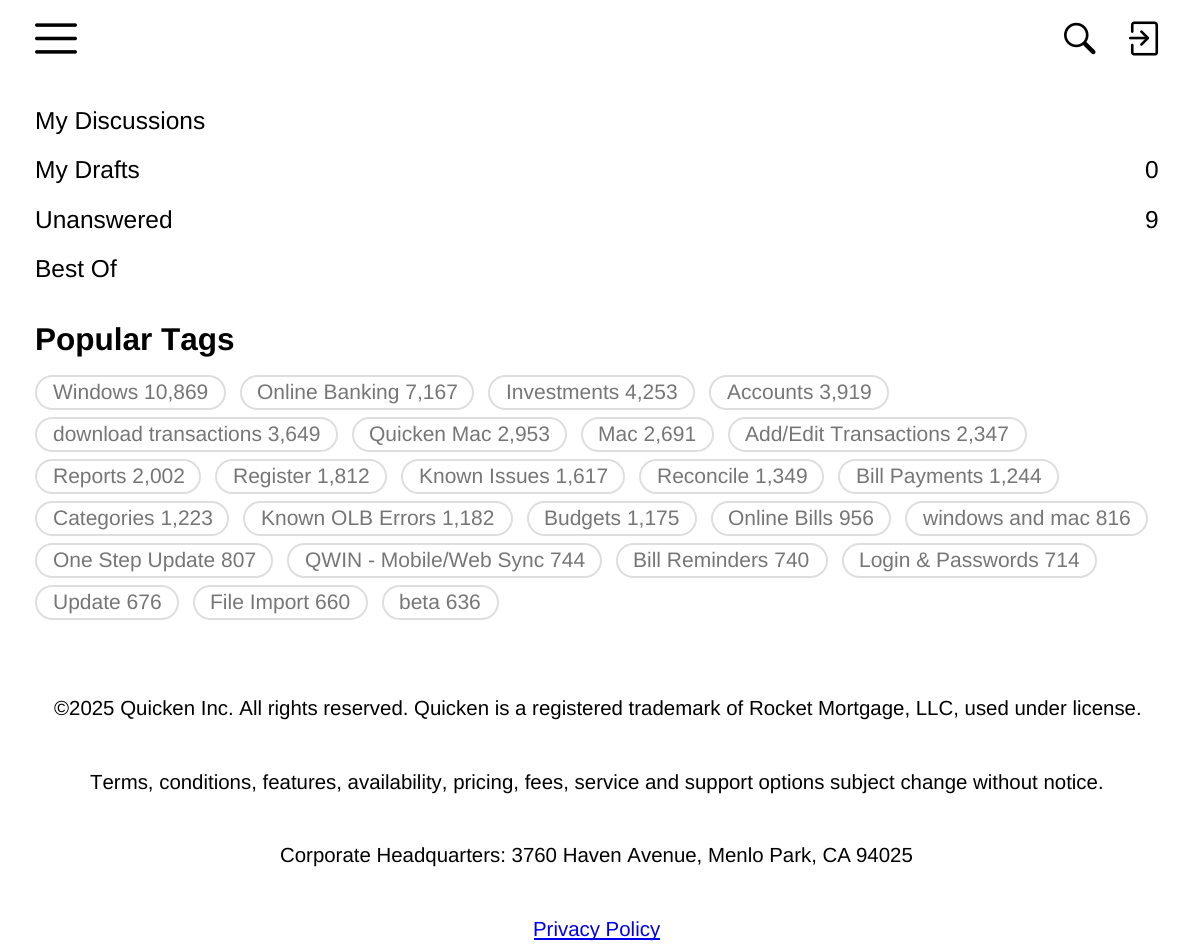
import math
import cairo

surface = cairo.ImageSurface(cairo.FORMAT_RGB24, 1192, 946)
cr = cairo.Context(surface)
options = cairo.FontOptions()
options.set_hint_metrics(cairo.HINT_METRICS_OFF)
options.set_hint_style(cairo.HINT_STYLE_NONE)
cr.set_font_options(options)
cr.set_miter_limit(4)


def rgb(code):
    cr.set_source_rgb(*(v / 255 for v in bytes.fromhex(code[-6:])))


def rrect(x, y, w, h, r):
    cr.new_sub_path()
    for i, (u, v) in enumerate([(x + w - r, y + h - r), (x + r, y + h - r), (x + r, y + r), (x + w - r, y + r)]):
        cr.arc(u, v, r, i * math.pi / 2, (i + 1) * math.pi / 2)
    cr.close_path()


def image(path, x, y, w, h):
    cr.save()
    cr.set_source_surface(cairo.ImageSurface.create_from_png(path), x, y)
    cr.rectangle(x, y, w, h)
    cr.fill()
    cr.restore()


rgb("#ffffff")
cr.paint()
image("img/1.png", 35, 23, 42, 31)
image("img/2.png", 1064, 22, 32, 33)
image("img/3.png", 1129, 21, 30, 35)
rrect(36, 376, 189, 33, 16.5)
rgb("#dddee0")
cr.stroke()
rrect(241, 376, 232, 33, 16.5)
cr.stroke()
rrect(489, 376, 205, 33, 16.5)
cr.stroke()
rrect(710, 376, 178, 33, 16.5)
cr.stroke()
rrect(36, 418, 301, 33, 16.5)
cr.stroke()
rrect(353, 418, 213, 33, 16.5)
cr.stroke()
rrect(582, 418, 131, 33, 16.5)
cr.stroke()
rrect(729, 418, 297, 33, 16.5)
cr.stroke()
rrect(36, 460, 164, 33, 16.5)
cr.stroke()
rrect(216, 460, 170, 33, 16.5)
cr.stroke()
rrect(402, 460, 222, 33, 16.5)
cr.stroke()
rrect(640, 460, 183, 33, 16.5)
cr.stroke()
rrect(839, 460, 219, 33, 16.5)
cr.stroke()
rrect(36, 502, 192, 33, 16.5)
cr.stroke()
rrect(244, 502, 268, 33, 16.5)
cr.stroke()
rrect(528, 502, 168, 33, 16.5)
cr.stroke()
rrect(712, 502, 178, 33, 16.5)
cr.stroke()
rrect(906, 502, 241, 33, 16.5)
cr.stroke()
rrect(36, 544, 236, 33, 16.5)
cr.stroke()
rrect(288, 544, 313, 33, 16.5)
cr.stroke()
rrect(617, 544, 210, 33, 16.5)
cr.stroke()
rrect(843, 544, 253, 33, 16.5)
cr.stroke()
rrect(36, 586, 142, 33, 16.5)
cr.stroke()
rrect(194, 586, 173, 33, 16.5)
cr.stroke()
rrect(383, 586, 115, 33, 16.5)
cr.stroke()
rgb("#0000ee")
cr.rectangle(534, 938, 126, 2)
cr.fill()
cr.select_font_face("Liberation Sans")
cr.set_font_size(24.5)
rgb("#000000")
for x, y, s in [
    (35, 129, "My Discussions"),
    (35, 178, "My Drafts"),
    (1145, 178, "0"),
    (35, 228, "Unanswered"),
    (1145, 228, "9"),
    (35, 277, "Best Of"),
]:
    cr.move_to(x, y)
    cr.show_text(s)
cr.select_font_face("Liberation Sans", cairo.FONT_SLANT_NORMAL, cairo.FONT_WEIGHT_BOLD)
cr.set_font_size(31.5)
cr.move_to(35, 350)
cr.show_text("Popular Tags")
cr.select_font_face("Liberation Sans")
cr.set_font_size(21)
rgb("#767676")
for x, y, s in [
    (53, 399, "Windows 10,869"),
    (257, 399, "Online Banking 7,167"),
    (506, 399, "Investments 4,253"),
    (727, 399, "Accounts 3,919"),
    (53, 441, "download transactions 3,649"),
    (369, 441, "Quicken Mac 2,953"),
    (598, 441, "Mac 2,691"),
    (745, 441, "Add/Edit Transactions 2,347"),
    (53, 483, "Reports 2,002"),
    (233, 483, "Register 1,812"),
    (419, 483, "Known Issues 1,617"),
    (657, 483, "Reconcile 1,349"),
    (856, 483, "Bill Payments 1,244"),
    (53, 525, "Categories 1,223"),
    (261, 525, "Known OLB Errors 1,182"),
    (544, 525, "Budgets 1,175"),
    (728, 525, "Online Bills 956"),
    (923, 525, "windows and mac 816"),
    (53, 567, "One Step Update 807"),
    (305, 567, "QWIN - Mobile/Web Sync 744"),
    (633, 567, "Bill Reminders 740"),
    (859, 567, "Login & Passwords 714"),
    (53, 609, "Update 676"),
    (210, 609, "File Import 660"),
    (399, 609, "beta 636"),
]:
    cr.move_to(x, y)
    cr.show_text(s)
cr.set_font_size(20.42)
rgb("#000000")
for x, y, s in [
    (54, 715, "©2025 Quicken Inc. All rights reserved. Quicken is a registered trademark of Rocket Mortgage, LLC, used under license."),
    (90, 789, "Terms, conditions, features, availability, pricing, fees, service and support options subject change without notice."),
    (280, 862, "Corporate Headquarters: 3760 Haven Avenue, Menlo Park, CA"),
    (856, 862, "94025"),
]:
    cr.move_to(x, y)
    cr.show_text(s)
rgb("#0000ee")
cr.move_to(533, 936)
cr.show_text("Privacy Policy")
surface.write_to_png("page.png")
